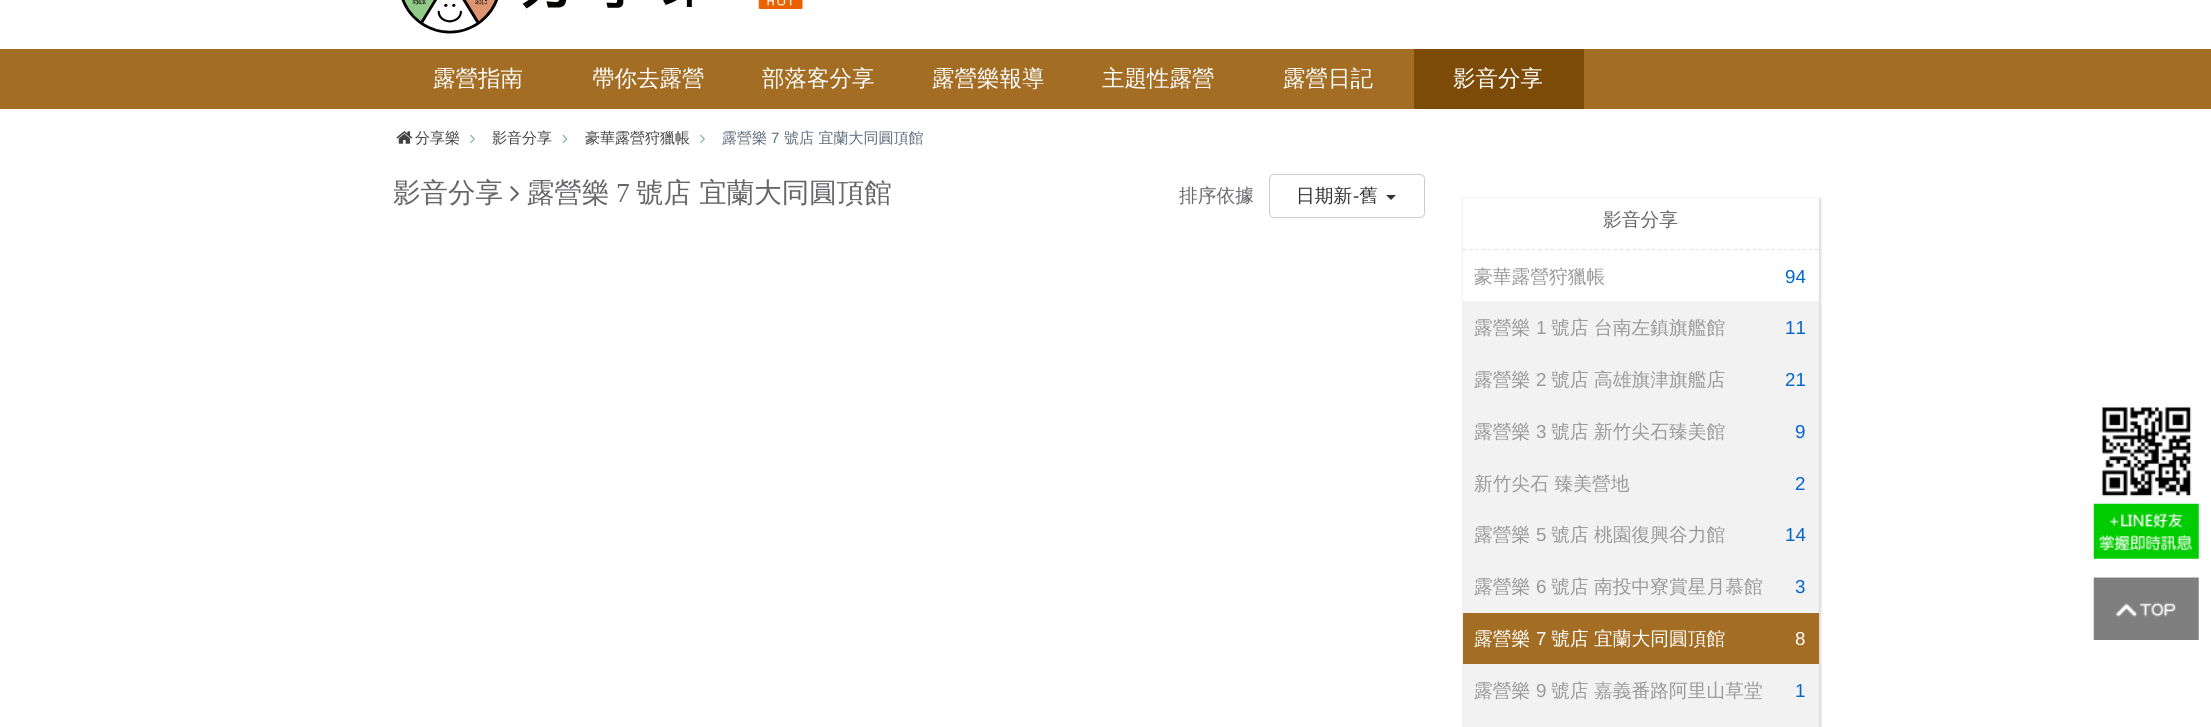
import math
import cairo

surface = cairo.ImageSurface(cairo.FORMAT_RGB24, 2211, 727)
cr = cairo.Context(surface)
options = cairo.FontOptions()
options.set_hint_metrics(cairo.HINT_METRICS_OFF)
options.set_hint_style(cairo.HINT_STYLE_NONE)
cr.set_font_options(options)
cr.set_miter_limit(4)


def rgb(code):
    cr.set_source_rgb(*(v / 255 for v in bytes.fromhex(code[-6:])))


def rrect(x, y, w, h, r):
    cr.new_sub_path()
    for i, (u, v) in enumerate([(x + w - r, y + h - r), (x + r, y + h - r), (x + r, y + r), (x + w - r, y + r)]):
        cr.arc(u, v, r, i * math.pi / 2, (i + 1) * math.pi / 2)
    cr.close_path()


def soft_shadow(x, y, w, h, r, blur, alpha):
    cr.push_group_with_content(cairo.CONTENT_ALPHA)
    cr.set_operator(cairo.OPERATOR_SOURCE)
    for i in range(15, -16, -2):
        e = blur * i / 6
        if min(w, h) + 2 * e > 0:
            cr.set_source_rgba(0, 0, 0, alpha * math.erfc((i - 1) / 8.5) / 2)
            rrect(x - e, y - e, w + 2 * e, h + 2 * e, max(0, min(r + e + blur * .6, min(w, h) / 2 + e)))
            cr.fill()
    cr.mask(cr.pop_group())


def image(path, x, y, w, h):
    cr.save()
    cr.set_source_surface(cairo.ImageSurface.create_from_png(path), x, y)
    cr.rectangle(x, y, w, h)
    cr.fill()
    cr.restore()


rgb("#ffffff")
cr.paint()
image("img/1.png", 401, 0, 291, 34)
image("img/2.png", 758, 0, 45, 9)
rgb("#a36d23")
cr.rectangle(0, 49, 2211, 60)
cr.fill()
rgb("#7c4b08")
cr.rectangle(1414, 49, 170, 60)
cr.fill()
image("img/3.png", 396, 131, 17, 13)
image("img/4.png", 470, 134, 5, 9)
image("img/5.png", 562, 134, 6, 9)
image("img/4.png", 700, 134, 5, 9)
image("img/6.png", 510, 186, 10, 16)
rrect(1269.5, 174.5, 155, 43, 4.5)
rgb("#cccccc")
cr.set_line_width(1)
cr.stroke()
rgb("#333333")
cr.new_path()
cr.move_to(1386, 195)
cr.line_to(1396, 195)
cr.line_to(1391, 200)
cr.close_path()
cr.fill()
cr.save()
cr.set_fill_rule(cairo.FILL_RULE_EVEN_ODD)
cr.new_path()
cr.move_to(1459, 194)
cr.line_to(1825, 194)
cr.line_to(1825, 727)
cr.line_to(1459, 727)
cr.close_path()
cr.move_to(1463, 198)
cr.line_to(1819, 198)
cr.line_to(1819, 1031)
cr.line_to(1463, 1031)
cr.close_path()
cr.clip()
rgb("#dbdbdb")
soft_shadow(1463, 198, 358, 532, 0, 1, 1)
cr.restore()
cr.new_path()
cr.move_to(1462.5, 249.5)
cr.line_to(1819, 249.5)
rgb("#e4e4e4")
cr.set_line_width(1.2)
cr.set_dash([3.75, 2.55])
cr.stroke()
for x, y, w, h, color in [
    (1463, 301, 356, 312, "#f2f2f2"),
    (1463, 613, 356, 51, "#a36d23"),
    (1463, 664, 356, 63, "#f2f2f2"),
]:
    rgb(color)
    cr.rectangle(x, y, w, h)
    cr.fill()
image("img/7.png", 2093, 406, 106, 234)
cr.select_font_face("WenQuanYi Zen Hei Medium")
cr.set_font_size(22.5)
rgb("#ffffff")
for x, y, s in [
    (433, 86, "露營指南"),
    (592, 86, "帶你去露營"),
    (762, 86, "部落客分享"),
    (932, 86, "露營樂報導"),
    (1102, 86, "主題性露營"),
    (1283, 86, "露營日記"),
    (1453, 86, "影音分享"),
]:
    cr.move_to(x, y)
    cr.show_text(s)
cr.set_font_size(15)
rgb("#434343")
for x, y, s in [
    (415, 143, "分享樂"),
    (492, 143, "影音分享"),
    (585, 143, "豪華露營狩獵帳"),
]:
    cr.move_to(x, y)
    cr.show_text(s)
rgb("#5f6d7b")
cr.move_to(722, 143)
cr.show_text("露營樂")
cr.select_font_face("Liberation Sans")
cr.move_to(771, 143)
cr.show_text("7")
cr.select_font_face("WenQuanYi Zen Hei Medium")
cr.move_to(784, 143)
cr.show_text("號店 宜蘭大同圓頂館")
cr.set_font_size(27.5)
rgb("#66666a")
cr.move_to(393, 202)
cr.show_text("影音分享")
cr.move_to(527, 202)
cr.show_text("露營樂")
cr.select_font_face("Liberation Serif")
cr.move_to(616, 202)
cr.show_text("7")
cr.select_font_face("WenQuanYi Zen Hei Medium")
cr.move_to(636, 202)
cr.show_text("號店 宜蘭大同圓頂館")
cr.set_font_size(18.75)
cr.move_to(1179, 202)
cr.show_text("排序依據")
rgb("#333333")
cr.move_to(1296, 202)
cr.show_text("日期新")
cr.select_font_face("Liberation Sans")
cr.move_to(1353, 202)
cr.show_text("-")
cr.select_font_face("WenQuanYi Zen Hei Medium")
cr.move_to(1359, 202)
cr.show_text("舊")
rgb("#66666a")
cr.move_to(1603, 226)
cr.show_text("影音分享")
rgb("#999999")
cr.move_to(1474, 283)
cr.show_text("豪華露營狩獵帳")
cr.select_font_face("Liberation Sans")
rgb("#0066cc")
cr.move_to(1785, 283)
cr.show_text("94")
cr.select_font_face("WenQuanYi Zen Hei Medium")
rgb("#999999")
cr.move_to(1474, 334)
cr.show_text("露營樂")
cr.select_font_face("Liberation Sans")
cr.move_to(1536, 334)
cr.show_text("1")
cr.select_font_face("WenQuanYi Zen Hei Medium")
cr.move_to(1551, 334)
cr.show_text("號店 台南左鎮旗艦館")
cr.select_font_face("Liberation Sans")
rgb("#0066cc")
cr.move_to(1785, 334)
cr.show_text("11")
cr.select_font_face("WenQuanYi Zen Hei Medium")
rgb("#999999")
cr.move_to(1474, 386)
cr.show_text("露營樂")
cr.select_font_face("Liberation Sans")
cr.move_to(1536, 386)
cr.show_text("2")
cr.select_font_face("WenQuanYi Zen Hei Medium")
cr.move_to(1551, 386)
cr.show_text("號店 高雄旗津旗艦店")
cr.select_font_face("Liberation Sans")
rgb("#0066cc")
cr.move_to(1785, 386)
cr.show_text("21")
cr.select_font_face("WenQuanYi Zen Hei Medium")
rgb("#999999")
cr.move_to(1474, 438)
cr.show_text("露營樂")
cr.select_font_face("Liberation Sans")
cr.move_to(1536, 438)
cr.show_text("3")
cr.select_font_face("WenQuanYi Zen Hei Medium")
cr.move_to(1551, 438)
cr.show_text("號店 新竹尖石臻美館")
cr.select_font_face("Liberation Sans")
rgb("#0066cc")
cr.move_to(1795, 438)
cr.show_text("9")
cr.select_font_face("WenQuanYi Zen Hei Medium")
rgb("#999999")
cr.move_to(1474, 490)
cr.show_text("新竹尖石 臻美營地")
cr.select_font_face("Liberation Sans")
rgb("#0066cc")
cr.move_to(1795, 490)
cr.show_text("2")
cr.select_font_face("WenQuanYi Zen Hei Medium")
rgb("#999999")
cr.move_to(1474, 541)
cr.show_text("露營樂")
cr.select_font_face("Liberation Sans")
cr.move_to(1536, 541)
cr.show_text("5")
cr.select_font_face("WenQuanYi Zen Hei Medium")
cr.move_to(1551, 541)
cr.show_text("號店 桃園復興谷力館")
cr.select_font_face("Liberation Sans")
rgb("#0066cc")
cr.move_to(1785, 541)
cr.show_text("14")
cr.select_font_face("WenQuanYi Zen Hei Medium")
rgb("#999999")
cr.move_to(1474, 593)
cr.show_text("露營樂")
cr.select_font_face("Liberation Sans")
cr.move_to(1536, 593)
cr.show_text("6")
cr.select_font_face("WenQuanYi Zen Hei Medium")
cr.move_to(1551, 593)
cr.show_text("號店 南投中寮賞星月慕館")
cr.select_font_face("Liberation Sans")
rgb("#0066cc")
cr.move_to(1795, 593)
cr.show_text("3")
cr.select_font_face("WenQuanYi Zen Hei Medium")
rgb("#ffffff")
cr.move_to(1474, 645)
cr.show_text("露營樂")
cr.select_font_face("Liberation Sans")
cr.move_to(1536, 645)
cr.show_text("7")
cr.select_font_face("WenQuanYi Zen Hei Medium")
cr.move_to(1551, 645)
cr.show_text("號店 宜蘭大同圓頂館")
cr.select_font_face("Liberation Sans")
cr.move_to(1795, 645)
cr.show_text("8")
cr.select_font_face("WenQuanYi Zen Hei Medium")
rgb("#999999")
cr.move_to(1474, 697)
cr.show_text("露營樂")
cr.select_font_face("Liberation Sans")
cr.move_to(1536, 697)
cr.show_text("9")
cr.select_font_face("WenQuanYi Zen Hei Medium")
cr.move_to(1551, 697)
cr.show_text("號店 嘉義番路阿里山草堂")
cr.select_font_face("Liberation Sans")
rgb("#0066cc")
cr.move_to(1795, 697)
cr.show_text("1")
surface.write_to_png("page.png")
